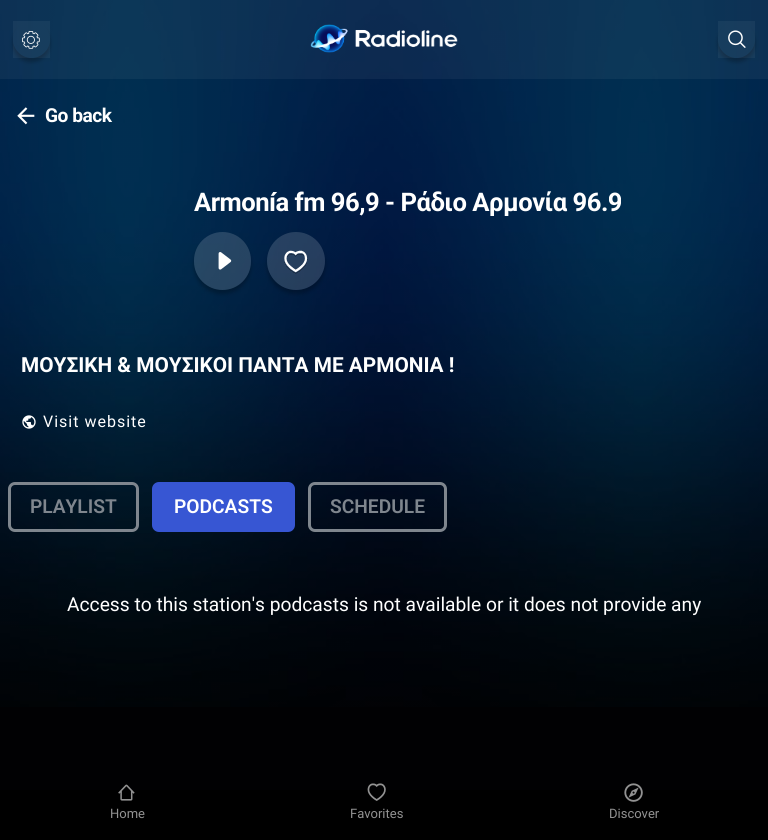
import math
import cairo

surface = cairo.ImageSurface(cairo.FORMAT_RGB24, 768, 840)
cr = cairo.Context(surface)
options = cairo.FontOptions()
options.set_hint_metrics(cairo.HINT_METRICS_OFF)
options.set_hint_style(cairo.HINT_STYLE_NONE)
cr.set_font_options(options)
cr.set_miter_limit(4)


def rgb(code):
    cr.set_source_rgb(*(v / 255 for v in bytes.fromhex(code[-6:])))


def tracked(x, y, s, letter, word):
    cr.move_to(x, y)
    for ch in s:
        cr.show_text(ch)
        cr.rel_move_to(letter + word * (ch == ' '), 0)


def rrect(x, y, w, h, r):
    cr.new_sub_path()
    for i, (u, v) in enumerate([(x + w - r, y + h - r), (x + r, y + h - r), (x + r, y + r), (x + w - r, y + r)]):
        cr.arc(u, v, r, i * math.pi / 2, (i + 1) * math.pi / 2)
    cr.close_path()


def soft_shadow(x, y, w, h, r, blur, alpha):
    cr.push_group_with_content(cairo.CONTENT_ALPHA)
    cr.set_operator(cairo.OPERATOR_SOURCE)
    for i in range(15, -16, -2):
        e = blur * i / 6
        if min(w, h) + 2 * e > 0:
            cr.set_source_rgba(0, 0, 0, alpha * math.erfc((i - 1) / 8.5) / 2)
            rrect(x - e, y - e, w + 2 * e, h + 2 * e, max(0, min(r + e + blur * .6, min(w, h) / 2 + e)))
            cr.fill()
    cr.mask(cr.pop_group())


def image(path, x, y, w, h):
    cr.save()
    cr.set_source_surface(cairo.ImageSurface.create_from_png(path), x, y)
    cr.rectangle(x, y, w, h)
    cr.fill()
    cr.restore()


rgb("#010103")
cr.paint()
image("img/1.png", 0, 0, 768, 707)
cr.set_source_rgba(1, 1, 1, 0.05)
cr.rectangle(0, 0, 768, 79)
cr.fill()
cr.save()
cr.set_fill_rule(cairo.FILL_RULE_EVEN_ODD)
cr.new_path()
cr.move_to(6, 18)
cr.line_to(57, 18)
cr.line_to(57, 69)
cr.line_to(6, 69)
cr.close_path()
cr.move_to(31.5, 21)
cr.curve_to(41.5, 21, 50, 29.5, 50, 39.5)
cr.curve_to(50, 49.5, 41.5, 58, 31.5, 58)
cr.curve_to(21.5, 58, 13, 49.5, 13, 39.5)
cr.curve_to(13, 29.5, 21.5, 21, 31.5, 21)
cr.close_path()
cr.clip()
rgb("#000000")
soft_shadow(13, 25, 37, 37, 18.5, 2, 0.25)
cr.restore()
cr.rectangle(13, 21, 37, 37)
cr.fill()
image("img/2.png", 22, 31, 18, 18)
image("img/3.png", 310, 24, 148, 29)
cr.save()
cr.set_fill_rule(cairo.FILL_RULE_EVEN_ODD)
cr.new_path()
cr.move_to(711, 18)
cr.line_to(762, 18)
cr.line_to(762, 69)
cr.line_to(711, 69)
cr.close_path()
cr.move_to(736.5, 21)
cr.curve_to(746.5, 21, 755, 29.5, 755, 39.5)
cr.curve_to(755, 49.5, 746.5, 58, 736.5, 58)
cr.curve_to(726.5, 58, 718, 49.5, 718, 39.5)
cr.curve_to(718, 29.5, 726.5, 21, 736.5, 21)
cr.close_path()
cr.clip()
rgb("#000000")
soft_shadow(718, 25, 37, 37, 18.5, 2, 0.25)
cr.restore()
cr.rectangle(718, 21, 37, 37)
cr.fill()
image("img/4.png", 728, 30, 18, 18)
image("img/5.png", 17, 107, 18, 18)
cr.save()
cr.set_fill_rule(cairo.FILL_RULE_EVEN_ODD)
cr.new_path()
cr.move_to(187, 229)
cr.line_to(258, 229)
cr.line_to(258, 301)
cr.line_to(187, 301)
cr.close_path()
cr.move_to(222.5, 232)
cr.curve_to(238, 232, 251, 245, 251, 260.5)
cr.line_to(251, 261.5)
cr.curve_to(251, 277, 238, 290, 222.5, 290)
cr.curve_to(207, 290, 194, 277, 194, 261.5)
cr.line_to(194, 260.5)
cr.curve_to(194, 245, 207, 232, 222.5, 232)
cr.close_path()
cr.clip()
rgb("#000000")
soft_shadow(194, 236, 57, 58, 28.5, 2, 0.25)
cr.restore()
cr.set_source_rgba(1, 1, 1, 0.15)
rrect(194, 232, 57, 58, 28.5)
cr.fill()
image("img/6.png", 218, 252, 14, 18)
cr.save()
cr.set_fill_rule(cairo.FILL_RULE_EVEN_ODD)
cr.new_path()
cr.move_to(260, 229)
cr.line_to(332, 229)
cr.line_to(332, 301)
cr.line_to(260, 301)
cr.close_path()
cr.move_to(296, 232)
cr.curve_to(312, 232, 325, 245, 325, 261)
cr.curve_to(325, 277, 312, 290, 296, 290)
cr.curve_to(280, 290, 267, 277, 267, 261)
cr.curve_to(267, 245, 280, 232, 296, 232)
cr.close_path()
cr.clip()
rgb("#000000")
soft_shadow(267, 236, 58, 58, 29, 2, 0.25)
cr.restore()
cr.arc(296, 261, 29, 0, 2 * math.pi)
cr.fill()
image("img/7.png", 284, 250, 24, 24)
image("img/8.png", 22, 415, 14, 14)
rrect(9.5, 483.5, 128, 47, 5.5)
rgb("#7f868e")
cr.set_line_width(3)
cr.stroke()
rgb("#3756d3")
rrect(153.5, 483.5, 140, 47, 5.5)
cr.fill_preserve()
cr.stroke()
rrect(309.5, 483.5, 136, 47, 5.5)
rgb("#7f868e")
cr.stroke()
gradient = cairo.LinearGradient(384, 728, 384, 840)
gradient.add_color_stop_rgba(0, 0, 0, 0, 0)
gradient.add_color_stop_rgba(0.03, 0, 0, 0, 0.01)
gradient.add_color_stop_rgba(0.06, 0, 0, 0, 0.05)
gradient.add_color_stop_rgba(0.09, 0, 0, 0, 0.11)
gradient.add_color_stop_rgba(0.12, 0, 0, 0, 0.18)
gradient.add_color_stop_rgba(0.15, 0, 0, 0, 0.26)
gradient.add_color_stop_rgba(0.19, 0, 0, 0, 0.35)
gradient.add_color_stop_rgba(0.23, 0, 0, 0, 0.45)
gradient.add_color_stop_rgba(0.28, 0, 0, 0, 0.55)
gradient.add_color_stop_rgba(0.34, 0, 0, 0, 0.65)
gradient.add_color_stop_rgba(0.41, 0, 0, 0, 0.74)
gradient.add_color_stop_rgba(0.49, 0, 0, 0, 0.82)
gradient.add_color_stop_rgba(0.59, 0, 0, 0, 0.89)
gradient.add_color_stop_rgba(0.71, 0, 0, 0, 0.95)
gradient.add_color_stop_rgba(0.84, 0, 0, 0, 0.99)
gradient.add_color_stop_rgba(1, 0, 0, 0, 1)
cr.set_source(gradient)
cr.rectangle(0, 790, 768, 50)
cr.fill()
image("img/9.png", 118, 784, 17, 17)
image("img/10.png", 367, 783, 19, 18)
image("img/11.png", 624, 783, 19, 19)
cr.select_font_face("Roboto", cairo.FONT_SLANT_NORMAL, cairo.FONT_WEIGHT_BOLD)
cr.set_font_size(19.2)
rgb("#ffffff")
tracked(45, 122, "Go back", -0.5, 0)
cr.save()
cr.rectangle(194, 188, 427, 28)
cr.clip()
cr.set_font_size(25.6)
tracked(194, 211, "Armonía fm 96,9 - Ράδιο Αρμονία 96.9", -0.5, 0)
cr.restore()
cr.set_font_size(20.8)
cr.move_to(21, 372)
cr.show_text("ΜΟΥΣΙΚΗ & ΜΟΥΣΙΚΟΙ ΠΑΝΤΑ ΜΕ ΑΡΜΟΝΙΑ !")
cr.select_font_face("Roboto")
cr.set_font_size(16)
tracked(43, 427, "Visit website", 1, 0)
cr.select_font_face("Roboto SemiBold")
cr.set_font_size(19.2)
rgb("#7f868e")
cr.move_to(30, 513)
cr.show_text("PLAYLIST")
rgb("#ffffff")
cr.move_to(174, 513)
cr.show_text("PODCASTS")
rgb("#7f868e")
cr.move_to(330, 513)
cr.show_text("SCHEDULE")
cr.select_font_face("Roboto")
rgb("#ffffff")
cr.move_to(67, 611)
cr.show_text("Access to this station's podcasts is not available or it does not provide any")
cr.set_font_size(13)
rgb("#929292")
for x, y, s in [
    (110, 818, "Home"),
    (350, 818, "Favorites"),
    (609, 818, "Discover"),
]:
    cr.move_to(x, y)
    cr.show_text(s)
surface.write_to_png("page.png")
